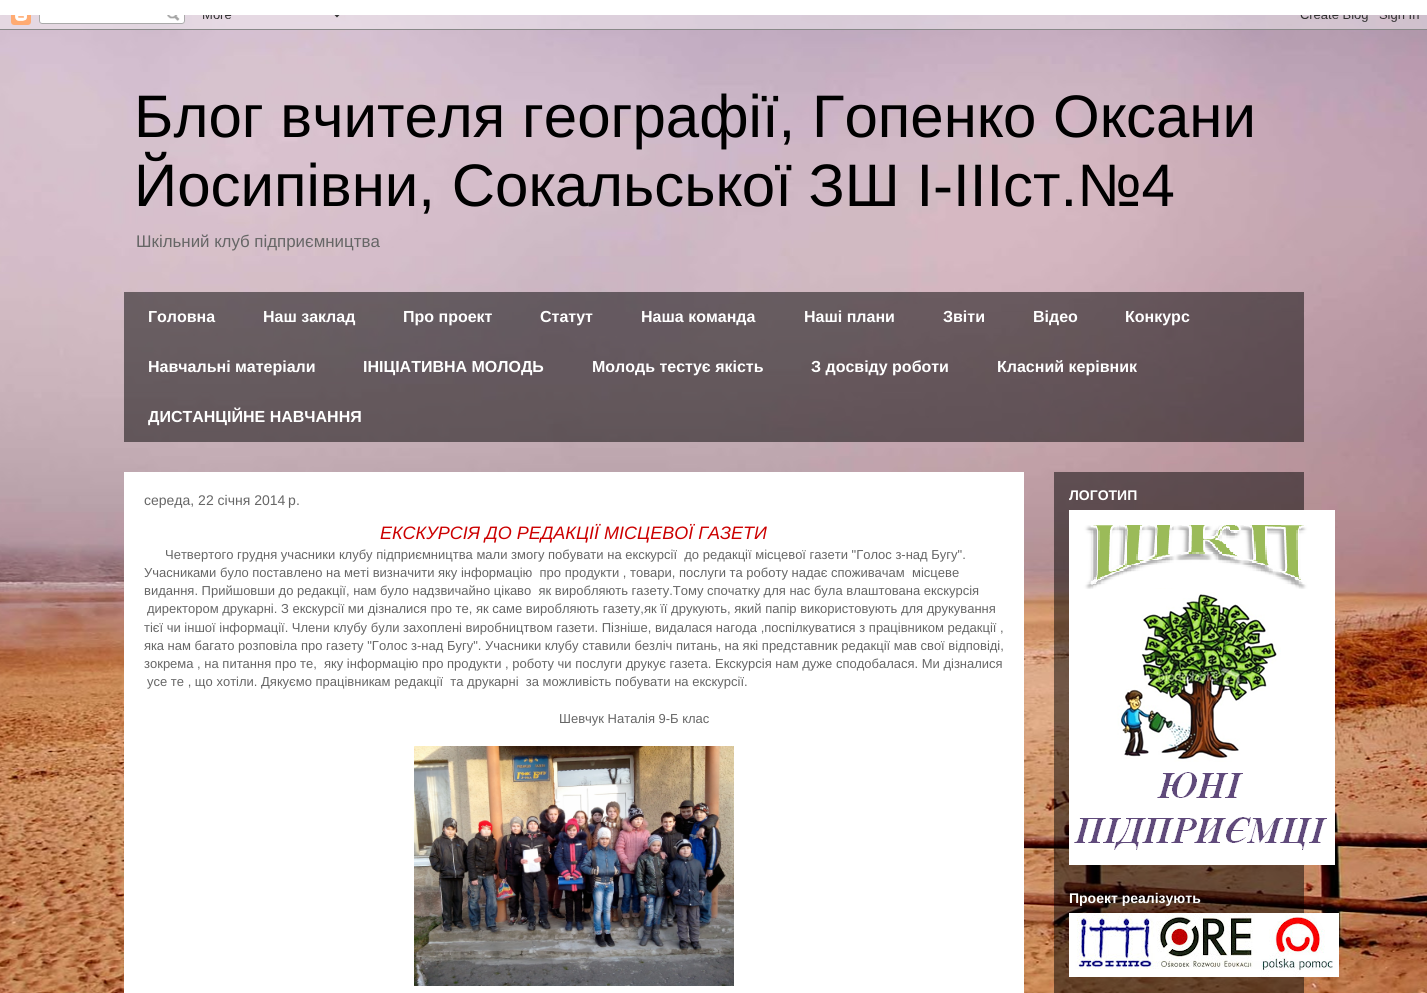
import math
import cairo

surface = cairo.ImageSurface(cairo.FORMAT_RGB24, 1427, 993)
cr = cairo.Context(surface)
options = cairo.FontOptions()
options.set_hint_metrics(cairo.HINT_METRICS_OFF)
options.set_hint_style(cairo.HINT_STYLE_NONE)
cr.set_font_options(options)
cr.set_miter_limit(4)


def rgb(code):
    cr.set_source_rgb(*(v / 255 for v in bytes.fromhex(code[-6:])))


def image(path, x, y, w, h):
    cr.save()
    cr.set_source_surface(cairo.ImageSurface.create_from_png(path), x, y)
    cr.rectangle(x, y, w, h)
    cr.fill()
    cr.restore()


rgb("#ffffff")
cr.paint()
image("img/1.png", 0, 15, 1427, 978)
image("img/2.png", 0, 15, 1427, 15)
cr.set_source_rgba(0, 0, 0, 0.5)
cr.rectangle(124, 292, 1180, 150)
cr.fill()
cr.rectangle(1054, 472, 250, 521)
cr.fill()
rgb("#ffffff")
cr.rectangle(124, 472, 900, 521)
cr.fill()
image("img/3.png", 414, 746, 320, 240)
image("img/4.png", 1069, 510, 266, 355)
image("img/5.png", 1069, 913, 270, 64)
cr.select_font_face("Liberation Sans")
cr.set_font_size(60)
rgb("#000000")
cr.move_to(134, 137)
cr.show_text("Блог вчителя географії, Гопенко Оксани")
cr.move_to(134, 206)
cr.show_text("Йосипівни, Сокальської ЗШ I-IIIст.№4")
cr.set_font_size(16.9)
rgb("#666666")
cr.move_to(136, 247)
cr.show_text("Шкільний клуб підприємництва")
cr.select_font_face("Liberation Sans", cairo.FONT_SLANT_NORMAL, cairo.FONT_WEIGHT_BOLD)
cr.set_font_size(16)
rgb("#ffffff")
for x, y, s in [
    (148, 322, "Головна"),
    (263, 322, "Наш заклад"),
    (403, 322, "Про проект"),
    (540, 322, "Статут"),
    (641, 322, "Наша команда"),
    (804, 322, "Наші плани"),
    (943, 322, "Звіти"),
    (1033, 322, "Відео"),
    (1125, 322, "Конкурс"),
    (148, 372, "Навчальні матеріали"),
    (363, 372, "ІНІЦІАТИВНА МОЛОДЬ"),
    (592, 372, "Молодь тестує якість"),
    (811, 372, "З досвіду роботи"),
    (997, 372, "Класний керівник"),
    (148, 422, "ДИСТАНЦІЙНЕ НАВЧАННЯ"),
]:
    cr.move_to(x, y)
    cr.show_text(s)
cr.select_font_face("Liberation Sans")
cr.set_font_size(14)
rgb("#666666")
cr.move_to(144, 505)
cr.show_text("середа, 22 січня 2014 р.")
cr.select_font_face("Liberation Sans", cairo.FONT_SLANT_ITALIC)
cr.set_font_size(18)
rgb("#cc0000")
cr.move_to(380, 539)
cr.show_text("ЕКСКУРСІЯ ДО РЕДАКЦІЇ МІСЦЕВОЇ ГАЗЕТИ")
cr.select_font_face("Liberation Sans")
cr.set_font_size(13)
rgb("#666666")
for x, y, s in [
    (165, 559, "Четвертого грудня учасники клубу підприємництва мали змогу побувати на екскурсії  до редакції місцевої газети \"Голос з-над Бугу\"."),
    (144, 577, "Учасниками було поставлено на меті визначити яку інформацію  про продукти , товари, послуги та роботу надає споживачам  місцеве"),
    (144, 595, "видання. Прийшовши до редакції, нам було надзвичайно цікаво  як виробляють газету.Тому спочатку для нас була влаштована екскурсія"),
    (147, 613, "директором друкарні. З екскурсії ми дізналися про те, як саме виробляють газету,як її друкують, який папір використовують для друкування"),
    (144, 632, "тієї чи іншої інформації. Члени клубу були захоплені виробництвом газети. Пізніше, видалася нагода ,поспілкуватися з працівником редакції ,"),
    (144, 650, "яка нам багато розповіла про газету \"Голос з-над Бугу\". Учасники клубу ставили безліч питань, на які представник редакції мав свої відповіді,"),
    (144, 668, "зокрема , на питання про те,  яку інформацію про продукти , роботу чи послуги друкує газета. Екскурсія нам дуже сподобалася. Ми дізналися"),
    (147, 686, "усе те , що хотіли. Дякуємо працівникам редакції  та друкарні  за можливість побувати на екскурсії."),
    (559, 723, "Шевчук Наталія 9-Б клас"),
]:
    cr.move_to(x, y)
    cr.show_text(s)
cr.select_font_face("Liberation Sans", cairo.FONT_SLANT_NORMAL, cairo.FONT_WEIGHT_BOLD)
cr.set_font_size(14)
rgb("#ffffff")
cr.move_to(1069, 500)
cr.show_text("ЛОГОТИП")
cr.move_to(1069, 903)
cr.show_text("Проект реалізують")
surface.write_to_png("page.png")
